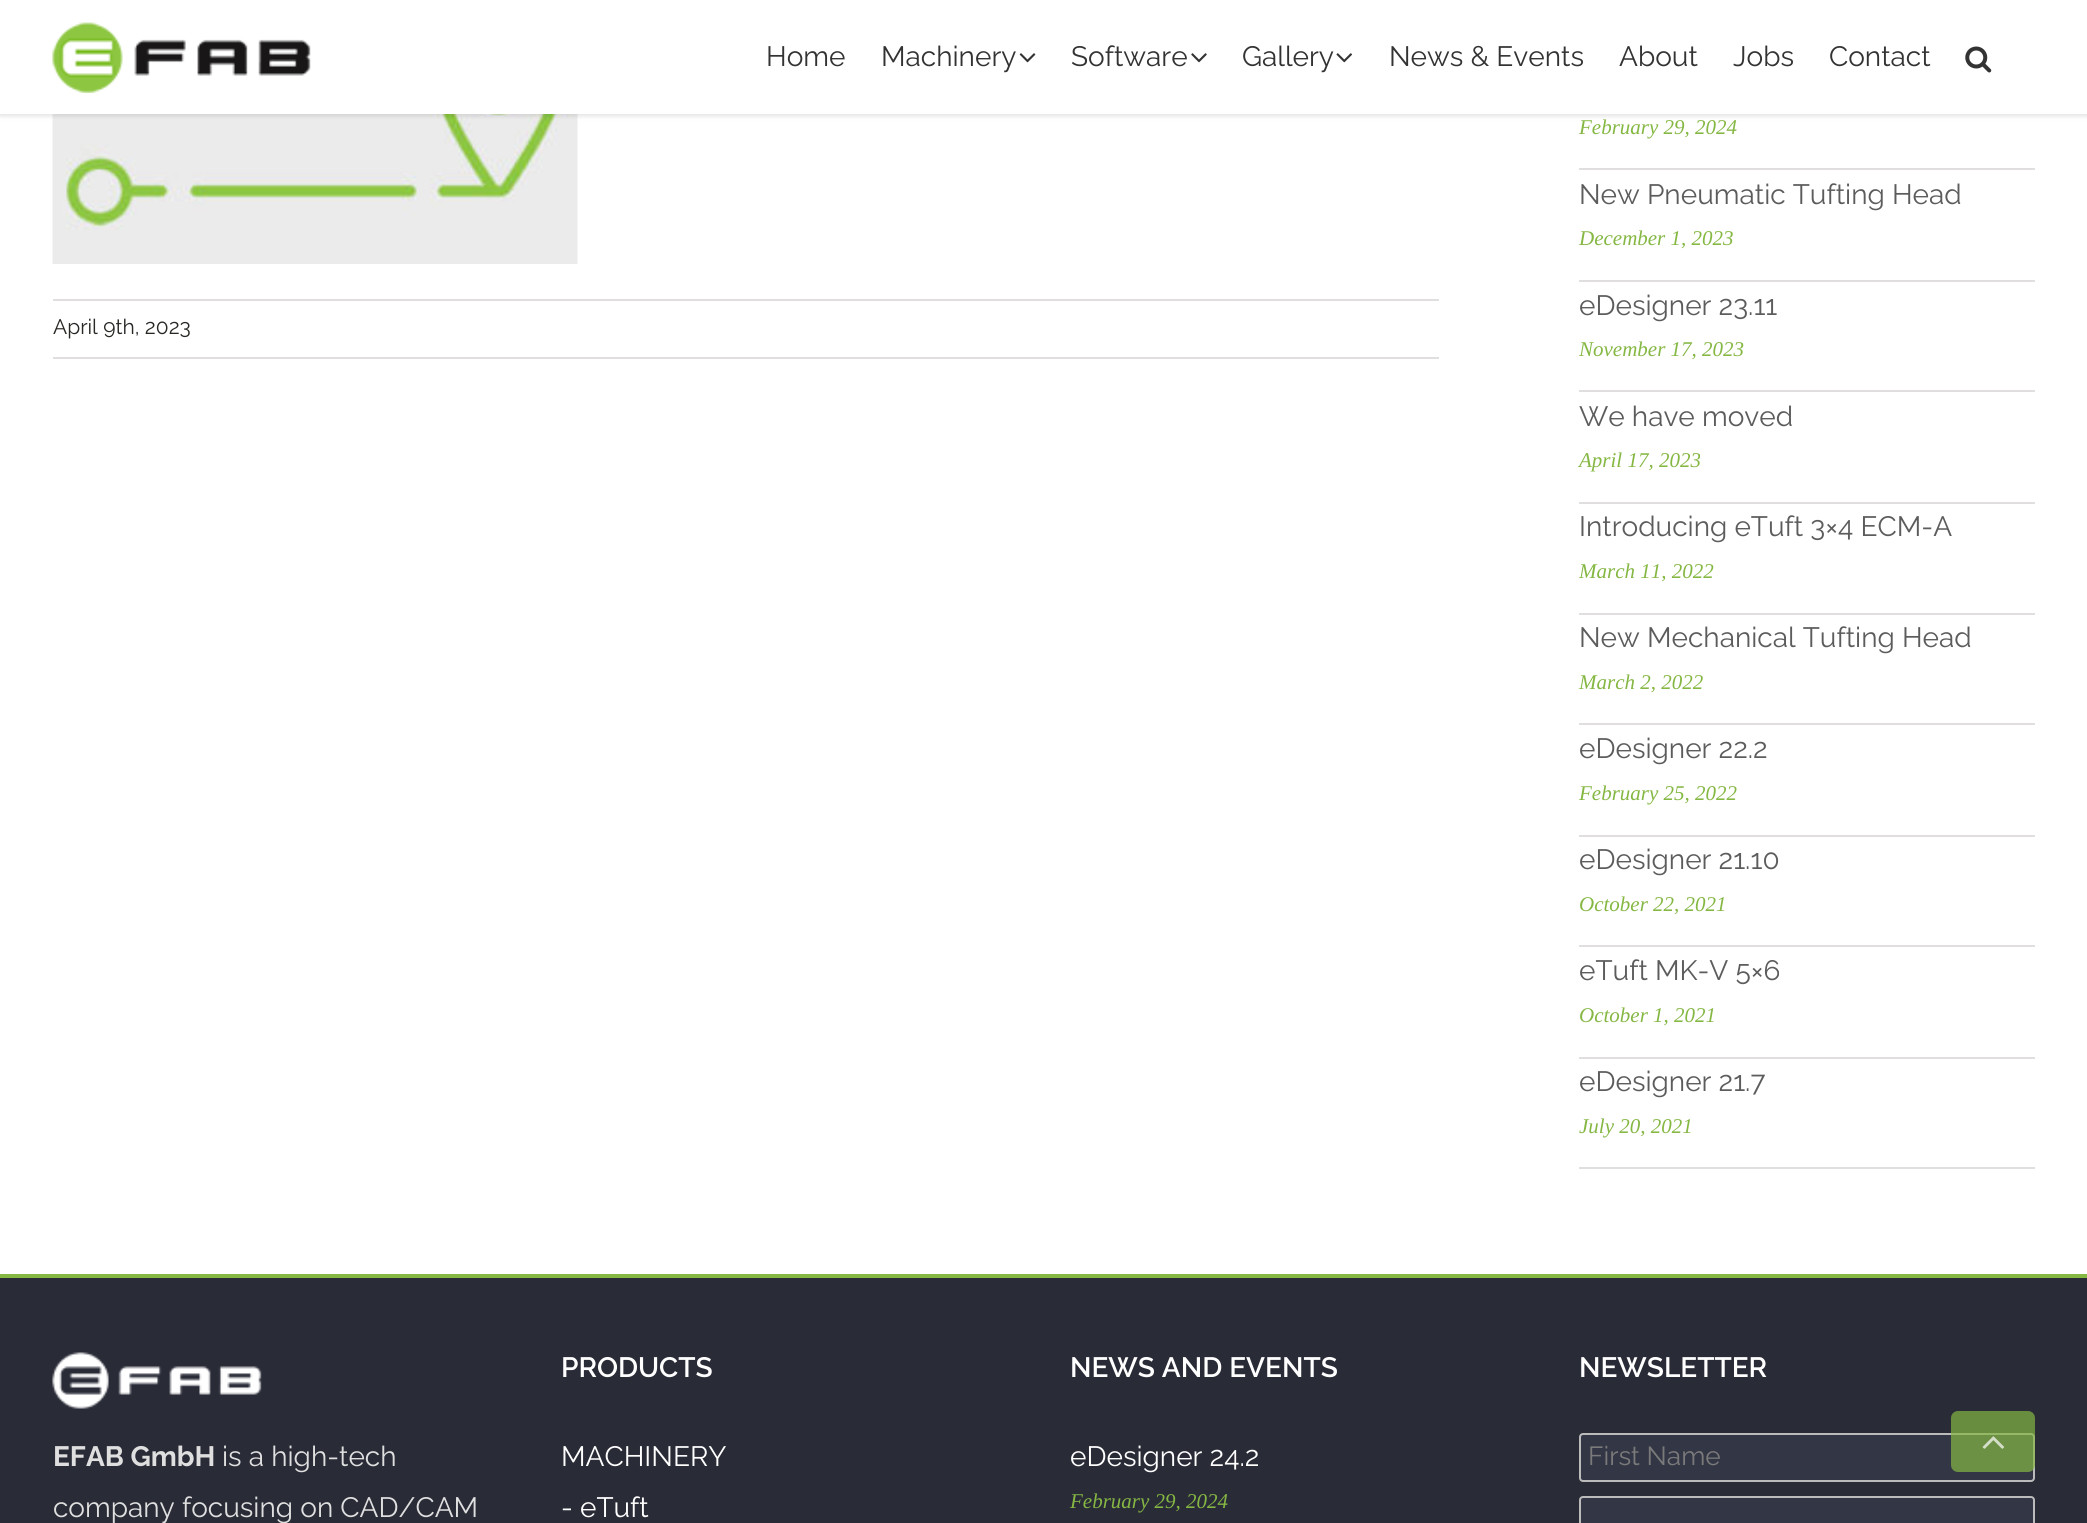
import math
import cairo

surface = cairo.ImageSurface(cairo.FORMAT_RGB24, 2087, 1523)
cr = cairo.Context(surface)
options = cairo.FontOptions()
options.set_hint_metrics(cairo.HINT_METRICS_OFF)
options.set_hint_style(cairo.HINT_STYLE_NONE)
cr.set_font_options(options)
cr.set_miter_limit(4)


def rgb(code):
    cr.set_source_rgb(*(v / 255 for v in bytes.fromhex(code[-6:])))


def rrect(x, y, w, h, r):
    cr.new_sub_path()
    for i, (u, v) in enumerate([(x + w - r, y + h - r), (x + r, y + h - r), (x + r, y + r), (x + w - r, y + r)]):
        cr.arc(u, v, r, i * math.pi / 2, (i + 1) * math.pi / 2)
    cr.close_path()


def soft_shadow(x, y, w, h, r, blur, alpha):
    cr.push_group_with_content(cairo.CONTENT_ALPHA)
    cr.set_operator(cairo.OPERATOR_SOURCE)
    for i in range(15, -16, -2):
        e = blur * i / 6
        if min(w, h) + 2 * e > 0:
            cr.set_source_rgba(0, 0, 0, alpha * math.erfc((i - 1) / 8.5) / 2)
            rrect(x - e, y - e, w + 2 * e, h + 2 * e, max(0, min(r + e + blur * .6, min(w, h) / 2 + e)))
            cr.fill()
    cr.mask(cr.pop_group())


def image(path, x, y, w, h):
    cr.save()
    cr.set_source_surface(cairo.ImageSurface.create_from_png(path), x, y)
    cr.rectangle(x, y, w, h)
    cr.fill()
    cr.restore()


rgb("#ffffff")
cr.paint()
image("img/6.png", 52, 114, 526, 150)
rgb("#000000")
soft_shadow(0, 2, 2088, 114, 0, 2.5, 0.12)
rgb("#ffffff")
cr.rectangle(0, 0, 2087, 114)
cr.fill()
image("img/1.png", 52, 22, 259, 71)
image("img/2.png", 1019, 53, 17, 10)
image("img/3.png", 1191, 53, 16, 10)
image("img/4.png", 1336, 53, 16, 10)
image("img/5.png", 1965, 46, 27, 27)
for x, y, w, h, color in [
    (53, 299, 1386, 2, "#e0dede"),
    (53, 357, 1386, 2, "#e0dede"),
    (1579, 168, 456, 2, "#e0dede"),
    (1579, 280, 456, 2, "#e0dede"),
    (1579, 390, 456, 2, "#e0dede"),
    (1579, 502, 456, 2, "#e0dede"),
    (1579, 613, 456, 2, "#e0dede"),
    (1579, 723, 456, 2, "#e0dede"),
    (1579, 835, 456, 2, "#e0dede"),
    (1579, 945, 456, 2, "#e0dede"),
    (1579, 1057, 456, 2, "#e0dede"),
    (1579, 1167, 456, 2, "#e0dede"),
    (0, 1278, 2087, 245, "#292b37"),
    (0, 1274, 2087, 4, "#85b743"),
]:
    rgb(color)
    cr.rectangle(x, y, w, h)
    cr.fill()
rgb("#333645")
rrect(1580, 1434, 454, 47, 3)
cr.fill_preserve()
rgb("#bbbbbb")
cr.stroke()
rgb("#333645")
rrect(1580, 1497, 454, 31, 3)
cr.fill_preserve()
rgb("#bbbbbb")
cr.stroke()
image("img/7.png", 52, 1352, 210, 57)
cr.set_source_rgba(0.522, 0.718, 0.263, 0.7)
rrect(1951, 1411, 84, 61, 7)
cr.fill()
image("img/8.png", 1982, 1436, 22, 13)
cr.select_font_face("Raleway")
cr.set_font_size(28)
rgb("#333333")
for x, y, s in [
    (766, 66, "Home"),
    (881, 66, "Machinery"),
    (1071, 66, "Software"),
    (1242, 66, "Gallery"),
    (1389, 66, "News & Events"),
    (1619, 66, "About"),
    (1733, 66, "Jobs"),
    (1829, 66, "Contact"),
]:
    cr.move_to(x, y)
    cr.show_text(s)
cr.set_font_size(21)
rgb("#292723")
cr.move_to(53, 334)
cr.show_text("April 9th, 2023")
cr.select_font_face("Liberation Serif", cairo.FONT_SLANT_ITALIC)
rgb("#85b743")
cr.move_to(1579, 134)
cr.show_text("February 29, 2024")
cr.select_font_face("Raleway")
cr.set_font_size(28)
rgb("#5c5c5c")
cr.move_to(1579, 204)
cr.show_text("New Pneumatic Tufting Head")
cr.select_font_face("Liberation Serif", cairo.FONT_SLANT_ITALIC)
cr.set_font_size(21)
rgb("#85b743")
cr.move_to(1579, 245)
cr.show_text("December 1, 2023")
cr.select_font_face("Raleway")
cr.set_font_size(28)
rgb("#5c5c5c")
cr.move_to(1579, 315)
cr.show_text("eDesigner 23.11")
cr.select_font_face("Liberation Serif", cairo.FONT_SLANT_ITALIC)
cr.set_font_size(21)
rgb("#85b743")
cr.move_to(1579, 356)
cr.show_text("November 17, 2023")
cr.select_font_face("Raleway")
cr.set_font_size(28)
rgb("#5c5c5c")
cr.move_to(1579, 426)
cr.show_text("We have moved")
cr.select_font_face("Liberation Serif", cairo.FONT_SLANT_ITALIC)
cr.set_font_size(21)
rgb("#85b743")
cr.move_to(1579, 467)
cr.show_text("April 17, 2023")
cr.select_font_face("Raleway")
cr.set_font_size(28)
rgb("#5c5c5c")
cr.move_to(1579, 536)
cr.show_text("Introducing eTuft 3×4 ECM-A")
cr.select_font_face("Liberation Serif", cairo.FONT_SLANT_ITALIC)
cr.set_font_size(21)
rgb("#85b743")
cr.move_to(1579, 578)
cr.show_text("March 11, 2022")
cr.select_font_face("Raleway")
cr.set_font_size(28)
rgb("#5c5c5c")
cr.move_to(1579, 647)
cr.show_text("New Mechanical Tufting Head")
cr.select_font_face("Liberation Serif", cairo.FONT_SLANT_ITALIC)
cr.set_font_size(21)
rgb("#85b743")
cr.move_to(1579, 689)
cr.show_text("March 2, 2022")
cr.select_font_face("Raleway")
cr.set_font_size(28)
rgb("#5c5c5c")
cr.move_to(1579, 758)
cr.show_text("eDesigner 22.2")
cr.select_font_face("Liberation Serif", cairo.FONT_SLANT_ITALIC)
cr.set_font_size(21)
rgb("#85b743")
cr.move_to(1579, 800)
cr.show_text("February 25, 2022")
cr.select_font_face("Raleway")
cr.set_font_size(28)
rgb("#5c5c5c")
cr.move_to(1579, 869)
cr.show_text("eDesigner 21.10")
cr.select_font_face("Liberation Serif", cairo.FONT_SLANT_ITALIC)
cr.set_font_size(21)
rgb("#85b743")
cr.move_to(1579, 911)
cr.show_text("October 22, 2021")
cr.select_font_face("Raleway")
cr.set_font_size(28)
rgb("#5c5c5c")
cr.move_to(1579, 980)
cr.show_text("eTuft MK-V 5×6")
cr.select_font_face("Liberation Serif", cairo.FONT_SLANT_ITALIC)
cr.set_font_size(21)
rgb("#85b743")
cr.move_to(1579, 1022)
cr.show_text("October 1, 2021")
cr.select_font_face("Raleway")
cr.set_font_size(28)
rgb("#5c5c5c")
cr.move_to(1579, 1091)
cr.show_text("eDesigner 21.7")
cr.select_font_face("Liberation Serif", cairo.FONT_SLANT_ITALIC)
cr.set_font_size(21)
rgb("#85b743")
cr.move_to(1579, 1133)
cr.show_text("July 20, 2021")
cr.select_font_face("Raleway SemiBold")
cr.set_font_size(28)
rgb("#ffffff")
cr.move_to(561, 1377)
cr.show_text("PRODUCTS")
cr.select_font_face("Raleway")
cr.move_to(561, 1466)
cr.show_text("MACHINERY")
cr.move_to(561, 1517)
cr.show_text("- eTuft")
cr.select_font_face("Raleway SemiBold")
cr.move_to(1070, 1377)
cr.show_text("NEWS AND EVENTS")
cr.select_font_face("Raleway")
cr.move_to(1070, 1466)
cr.show_text("eDesigner 24.2")
cr.select_font_face("Liberation Serif", cairo.FONT_SLANT_ITALIC)
cr.set_font_size(21)
rgb("#85b743")
cr.move_to(1070, 1508)
cr.show_text("February 29, 2024")
cr.select_font_face("Raleway SemiBold")
cr.set_font_size(28)
rgb("#ffffff")
cr.move_to(1579, 1377)
cr.show_text("NEWSLETTER")
cr.select_font_face("Raleway")
cr.set_font_size(26.25)
rgb("#7a7a7a")
cr.move_to(1588, 1465)
cr.show_text("First Name")
cr.select_font_face("Raleway", cairo.FONT_SLANT_NORMAL, cairo.FONT_WEIGHT_BOLD)
cr.set_font_size(28)
rgb("#dfdfdf")
cr.move_to(53, 1466)
cr.show_text("EFAB GmbH")
cr.select_font_face("Raleway")
cr.move_to(222, 1466)
cr.show_text("is a high-tech")
cr.move_to(53, 1517)
cr.show_text("company focusing on CAD/CAM")
surface.write_to_png("page.png")
